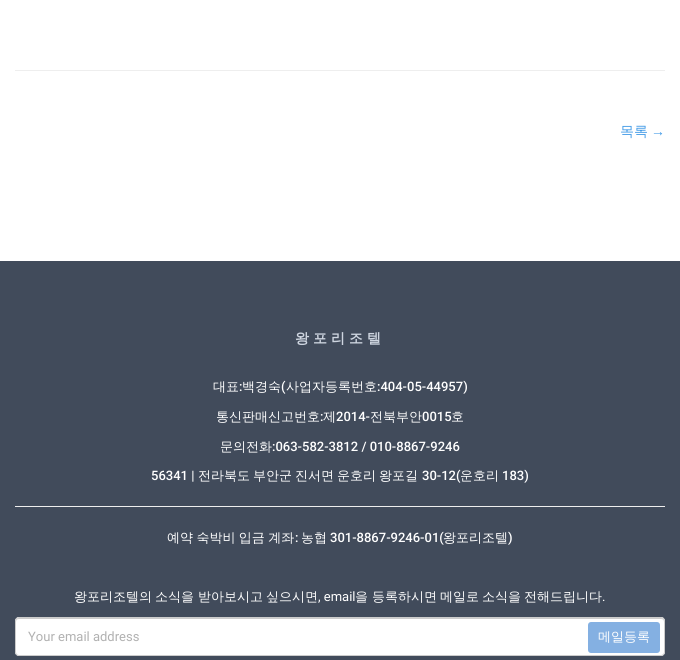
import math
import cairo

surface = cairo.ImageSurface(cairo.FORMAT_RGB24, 680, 660)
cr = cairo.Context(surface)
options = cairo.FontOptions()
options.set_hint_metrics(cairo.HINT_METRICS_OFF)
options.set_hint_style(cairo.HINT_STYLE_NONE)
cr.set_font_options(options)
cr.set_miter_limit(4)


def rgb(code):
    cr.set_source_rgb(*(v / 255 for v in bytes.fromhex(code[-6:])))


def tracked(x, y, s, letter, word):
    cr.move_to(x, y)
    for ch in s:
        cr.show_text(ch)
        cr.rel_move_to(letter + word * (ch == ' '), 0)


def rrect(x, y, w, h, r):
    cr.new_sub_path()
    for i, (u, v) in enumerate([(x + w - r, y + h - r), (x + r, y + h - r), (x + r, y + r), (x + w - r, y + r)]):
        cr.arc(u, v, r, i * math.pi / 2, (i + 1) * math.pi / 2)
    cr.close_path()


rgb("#ffffff")
cr.paint()
for x, y, w, h, color in [
    (15, 70, 650, 1, "#eeeeee"),
    (0, 261, 680, 399, "#414b5b"),
    (15, 506, 650, 1, "#eeeeee"),
]:
    rgb(color)
    cr.rectangle(x, y, w, h)
    cr.fill()
rgb("#ffffff")
rrect(15, 617, 650, 39, 4)
cr.fill()
rgb("#cccccc")
cr.new_path()
cr.move_to(19, 619)
cr.line_to(661, 619)
cr.curve_to(663, 619, 664, 620, 664, 622)
cr.line_to(664, 621)
cr.curve_to(664, 619, 663, 618, 661, 618)
cr.line_to(19, 618)
cr.curve_to(17, 618, 16, 619, 16, 621)
cr.line_to(16, 622)
cr.curve_to(16, 620, 17, 619, 19, 619)
cr.close_path()
cr.fill()
rrect(15.5, 617.5, 649, 38, 3.5)
cr.set_line_width(1)
cr.stroke()
rgb("#84b0e2")
rrect(588, 622, 72, 31, 3)
cr.fill()
cr.select_font_face("WenQuanYi Zen Hei Medium")
cr.set_font_size(14)
rgb("#459ce7")
cr.move_to(620, 136)
cr.show_text("목록")
cr.select_font_face("Liberation Serif")
cr.move_to(651, 136)
cr.show_text("→")
cr.select_font_face("WenQuanYi Zen Hei", cairo.FONT_SLANT_NORMAL, cairo.FONT_WEIGHT_BOLD)
rgb("#ced5e0")
tracked(295, 343, "왕포리조텔", 4, 0)
cr.select_font_face("WenQuanYi Zen Hei Medium")
cr.set_font_size(13)
rgb("#ffffff")
cr.move_to(213, 391)
cr.show_text("대표")
cr.select_font_face("Roboto Medium")
cr.move_to(239, 391)
cr.show_text(":")
cr.select_font_face("WenQuanYi Zen Hei Medium")
cr.move_to(242, 391)
cr.show_text("백경숙")
cr.select_font_face("Roboto Medium")
cr.move_to(281, 391)
cr.show_text("(")
cr.select_font_face("WenQuanYi Zen Hei Medium")
cr.move_to(286, 391)
cr.show_text("사업자등록번호")
cr.select_font_face("Roboto Medium")
cr.move_to(377, 391)
cr.show_text(":404-05-44957)")
cr.select_font_face("WenQuanYi Zen Hei Medium")
cr.move_to(216, 421)
cr.show_text("통신판매신고번호")
cr.select_font_face("Roboto Medium")
cr.move_to(320, 421)
cr.show_text(":")
cr.select_font_face("WenQuanYi Zen Hei Medium")
cr.move_to(323, 421)
cr.show_text("제")
cr.select_font_face("Roboto Medium")
cr.move_to(336, 421)
cr.show_text("2014-")
cr.select_font_face("WenQuanYi Zen Hei Medium")
cr.move_to(370, 421)
cr.show_text("전북부안")
cr.select_font_face("Roboto Medium")
cr.move_to(422, 421)
cr.show_text("0015")
cr.select_font_face("WenQuanYi Zen Hei Medium")
cr.move_to(451, 421)
cr.show_text("호")
cr.move_to(220, 451)
cr.show_text("문의전화")
cr.select_font_face("Roboto Medium")
cr.move_to(272, 451)
cr.show_text(":063-582-3812 / 010-8867-9246")
cr.move_to(151, 480)
cr.show_text("56341 |")
cr.select_font_face("WenQuanYi Zen Hei Medium")
for x, y, s in [
    (198, 480, "전라북도"),
    (253, 480, "부안군"),
    (295, 480, "진서면"),
    (337, 480, "운호리"),
    (379, 480, "왕포길"),
]:
    cr.move_to(x, y)
    cr.show_text(s)
cr.select_font_face("Roboto Medium")
cr.move_to(422, 480)
cr.show_text("30-12(")
cr.select_font_face("WenQuanYi Zen Hei Medium")
cr.move_to(460, 480)
cr.show_text("운호리")
cr.select_font_face("Roboto Medium")
cr.move_to(502, 480)
cr.show_text("183)")
cr.select_font_face("WenQuanYi Zen Hei Medium")
tracked(167, 542, "예약 숙박비 입금 계좌", 0, -0.5)
cr.select_font_face("Roboto Medium")
cr.move_to(295, 542)
cr.show_text(":")
cr.select_font_face("WenQuanYi Zen Hei Medium")
cr.move_to(301, 542)
cr.show_text("농협")
cr.select_font_face("Roboto Medium")
cr.move_to(330, 542)
cr.show_text("301-8867-9246-01(")
cr.select_font_face("WenQuanYi Zen Hei Medium")
cr.move_to(443, 542)
cr.show_text("왕포리조텔")
cr.select_font_face("Roboto Medium")
cr.move_to(508, 542)
cr.show_text(")")
cr.select_font_face("WenQuanYi Zen Hei Medium")
for x, y, s in [
    (74, 601, "왕포리조텔의"),
    (155, 601, "소식을"),
    (198, 601, "받아보시고"),
    (266, 601, "싶으시면"),
]:
    cr.move_to(x, y)
    cr.show_text(s)
cr.select_font_face("Roboto")
cr.move_to(318, 601)
cr.show_text(", email")
cr.select_font_face("WenQuanYi Zen Hei Medium")
for x, y, s in [
    (355, 601, "을"),
    (372, 601, "등록하시면"),
    (440, 601, "메일로"),
    (482, 601, "소식을"),
    (524, 601, "전해드립니다"),
]:
    cr.move_to(x, y)
    cr.show_text(s)
cr.select_font_face("Roboto")
cr.move_to(602, 601)
cr.show_text(".")
rgb("#b1b1b1")
cr.move_to(28, 641)
cr.show_text("Your email address")
cr.select_font_face("WenQuanYi Zen Hei Medium")
rgb("#ffffff")
cr.move_to(598, 641)
cr.show_text("메일등록")
surface.write_to_png("page.png")
